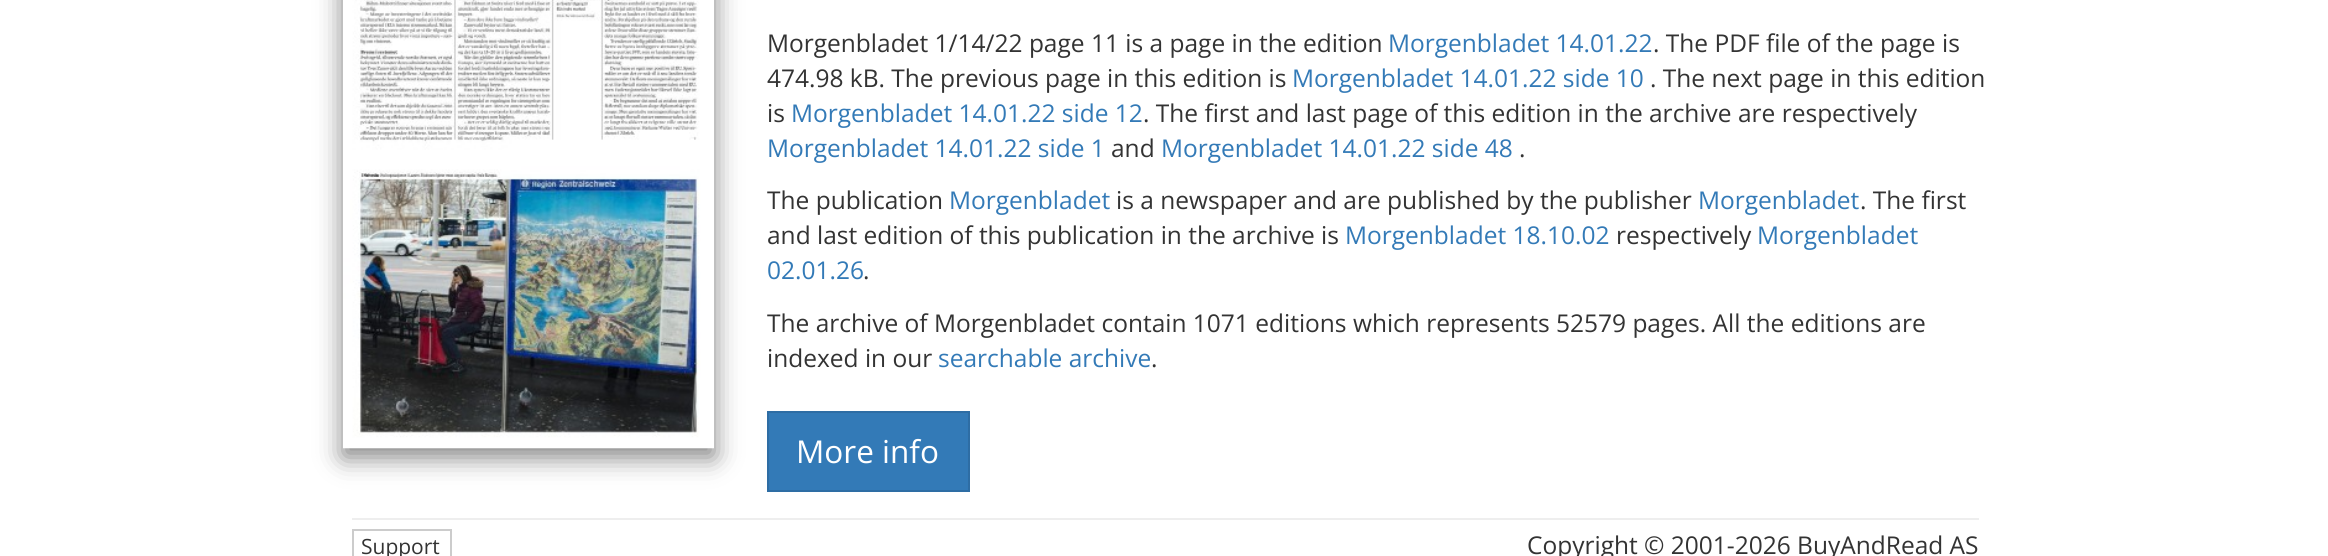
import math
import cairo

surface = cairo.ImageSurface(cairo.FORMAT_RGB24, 2328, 556)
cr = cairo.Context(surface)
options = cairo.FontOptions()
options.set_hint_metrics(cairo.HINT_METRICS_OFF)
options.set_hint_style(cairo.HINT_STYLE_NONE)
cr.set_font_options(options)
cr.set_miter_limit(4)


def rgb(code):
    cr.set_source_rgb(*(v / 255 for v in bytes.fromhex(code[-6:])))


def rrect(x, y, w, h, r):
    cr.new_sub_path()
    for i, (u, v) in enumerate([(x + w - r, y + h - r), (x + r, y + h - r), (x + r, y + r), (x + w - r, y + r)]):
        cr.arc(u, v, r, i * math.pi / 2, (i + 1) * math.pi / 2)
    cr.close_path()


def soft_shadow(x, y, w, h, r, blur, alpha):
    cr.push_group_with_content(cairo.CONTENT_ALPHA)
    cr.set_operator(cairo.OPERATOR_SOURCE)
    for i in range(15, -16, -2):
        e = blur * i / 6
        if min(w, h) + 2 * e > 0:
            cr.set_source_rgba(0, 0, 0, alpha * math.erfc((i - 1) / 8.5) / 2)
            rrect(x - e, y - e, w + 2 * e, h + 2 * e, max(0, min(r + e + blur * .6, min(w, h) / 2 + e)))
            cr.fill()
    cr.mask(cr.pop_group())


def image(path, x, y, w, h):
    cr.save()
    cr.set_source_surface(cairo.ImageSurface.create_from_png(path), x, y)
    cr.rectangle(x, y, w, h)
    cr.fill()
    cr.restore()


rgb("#ffffff")
cr.paint()
rgb("#000000")
soft_shadow(343, -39, 371, 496, 0, 13, 0.5)
image("img/1.png", 343, 0, 371, 449)
rgb("#337ab7")
cr.rectangle(768, 412, 201, 79)
cr.fill_preserve()
rgb("#2e6da4")
cr.stroke()
rgb("#eeeeee")
cr.rectangle(352, 518, 1627, 2)
cr.fill()
cr.rectangle(353, 530, 98, 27)
rgb("#cccccc")
cr.stroke()
cr.select_font_face("Open Sans")
cr.set_font_size(24.5)
rgb("#333333")
cr.move_to(767, 52)
cr.show_text("Morgenbladet 1/14/22 page 11 is a page in the edition")
rgb("#337ab7")
cr.move_to(1388, 52)
cr.show_text("Morgenbladet 14.01.22")
rgb("#333333")
cr.move_to(1653, 52)
cr.show_text(". The PDF file of the page is")
cr.move_to(767, 87)
cr.show_text("474.98 kB. The previous page in this edition is")
rgb("#337ab7")
cr.move_to(1292, 87)
cr.show_text("Morgenbladet 14.01.22 side 10")
rgb("#333333")
cr.move_to(1650, 87)
cr.show_text(". The next page in this edition")
cr.move_to(767, 122)
cr.show_text("is")
rgb("#337ab7")
cr.move_to(791, 122)
cr.show_text("Morgenbladet 14.01.22 side 12")
rgb("#333333")
cr.move_to(1143, 122)
cr.show_text(". The first and last page of this edition in the archive are respectively")
rgb("#337ab7")
cr.move_to(767, 157)
cr.show_text("Morgenbladet 14.01.22 side 1")
rgb("#333333")
cr.move_to(1111, 157)
cr.show_text("and")
rgb("#337ab7")
cr.move_to(1161, 157)
cr.show_text("Morgenbladet 14.01.22 side 48")
rgb("#333333")
cr.move_to(1519, 157)
cr.show_text(".")
cr.move_to(767, 209)
cr.show_text("The publication")
rgb("#337ab7")
cr.move_to(949, 209)
cr.show_text("Morgenbladet")
rgb("#333333")
cr.move_to(1116, 209)
cr.show_text("is a newspaper and are published by the publisher")
rgb("#337ab7")
cr.move_to(1698, 209)
cr.show_text("Morgenbladet")
rgb("#333333")
cr.move_to(1860, 209)
cr.show_text(". The first")
cr.move_to(767, 244)
cr.show_text("and last edition of this publication in the archive is")
rgb("#337ab7")
cr.move_to(1345, 244)
cr.show_text("Morgenbladet 18.10.02")
rgb("#333333")
cr.move_to(1616, 244)
cr.show_text("respectively")
rgb("#337ab7")
cr.move_to(1757, 244)
cr.show_text("Morgenbladet")
cr.move_to(767, 279)
cr.show_text("02.01.26")
rgb("#333333")
for x, y, s in [
    (863, 279, "."),
    (767, 332, "The archive of Morgenbladet contain 1071 editions which represents 52579 pages. All the editions are"),
    (767, 367, "indexed in our"),
]:
    cr.move_to(x, y)
    cr.show_text(s)
rgb("#337ab7")
cr.move_to(938, 367)
cr.show_text("searchable archive")
rgb("#333333")
cr.move_to(1151, 367)
cr.show_text(".")
cr.set_font_size(31.5)
rgb("#ffffff")
cr.move_to(796, 463)
cr.show_text("More info")
cr.set_font_size(21)
rgb("#333333")
cr.move_to(361, 554)
cr.show_text("Support")
cr.set_font_size(24.5)
cr.move_to(1527, 554)
cr.show_text("Copyright © 2001-2026 BuyAndRead AS")
surface.write_to_png("page.png")
